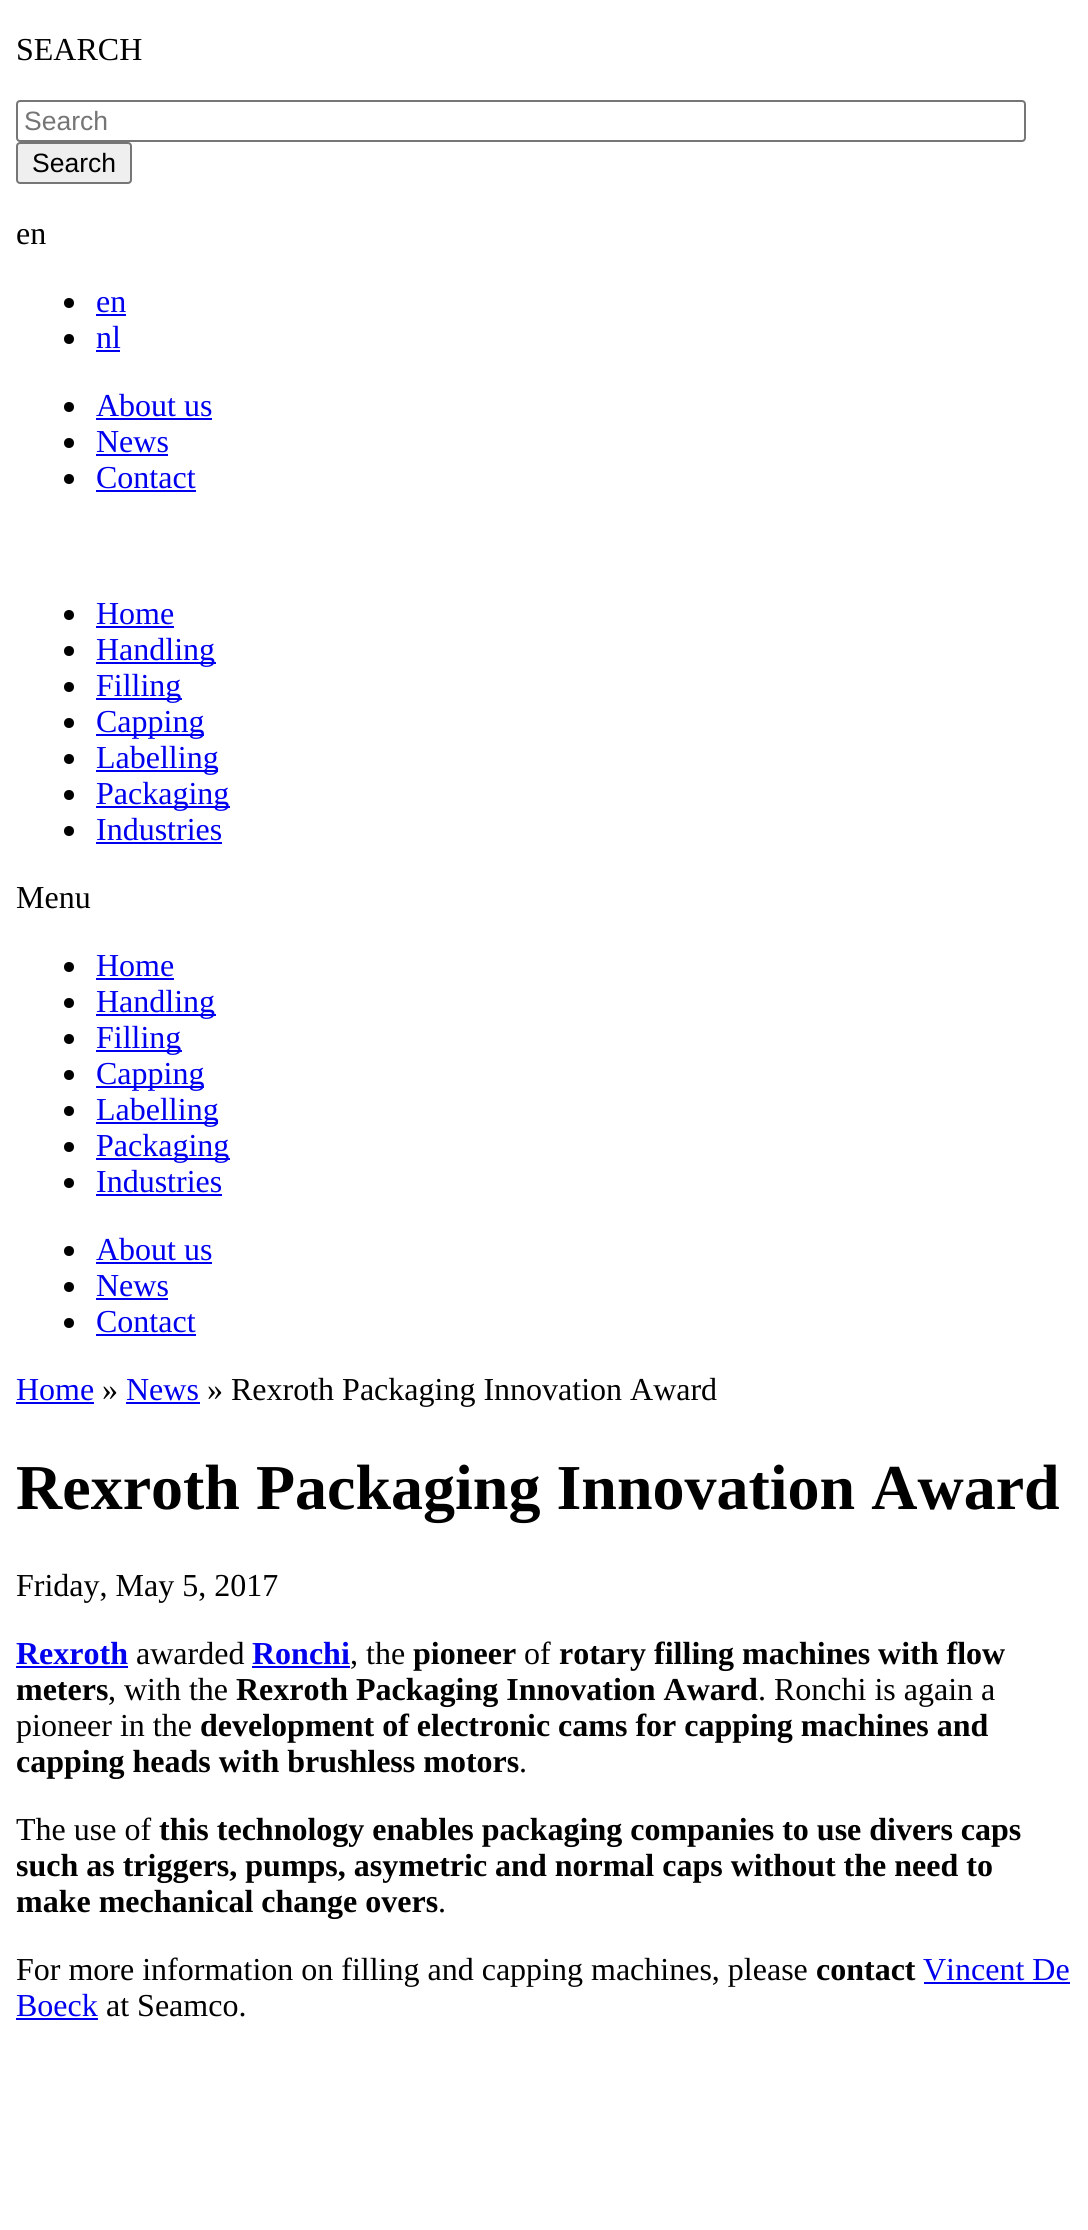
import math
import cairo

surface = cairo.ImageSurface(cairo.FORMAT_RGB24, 1088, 2230)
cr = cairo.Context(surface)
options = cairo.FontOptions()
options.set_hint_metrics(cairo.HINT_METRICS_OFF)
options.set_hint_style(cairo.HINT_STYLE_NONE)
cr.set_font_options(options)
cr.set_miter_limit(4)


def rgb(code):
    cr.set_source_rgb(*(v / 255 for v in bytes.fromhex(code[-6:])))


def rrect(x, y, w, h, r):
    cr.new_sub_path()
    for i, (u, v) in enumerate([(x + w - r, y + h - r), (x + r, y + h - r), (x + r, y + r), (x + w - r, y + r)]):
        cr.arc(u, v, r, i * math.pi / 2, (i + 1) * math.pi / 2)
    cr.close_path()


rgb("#ffffff")
cr.paint()
rrect(17, 101, 1008, 40, 3)
rgb("#767676")
cr.stroke()
rgb("#efefef")
rrect(17, 143, 114, 40, 3)
cr.fill_preserve()
rgb("#767676")
cr.stroke()
rgb("#000000")
cr.arc(69, 303, 5, 0, 2 * math.pi)
cr.fill()
rgb("#0000ee")
cr.rectangle(96, 314, 30, 2)
cr.fill()
rgb("#000000")
cr.arc(69, 339, 5, 0, 2 * math.pi)
cr.fill()
rgb("#0000ee")
cr.rectangle(96, 350, 24, 2)
cr.fill()
rgb("#000000")
cr.arc(69, 407, 5, 0, 2 * math.pi)
cr.fill()
rgb("#0000ee")
cr.rectangle(96, 418, 116, 2)
cr.fill()
rgb("#000000")
cr.arc(69, 443, 5, 0, 2 * math.pi)
cr.fill()
rgb("#0000ee")
cr.rectangle(96, 454, 72, 2)
cr.fill()
rgb("#000000")
cr.arc(69, 479, 5, 0, 2 * math.pi)
cr.fill()
rgb("#0000ee")
cr.rectangle(96, 490, 100, 2)
cr.fill()
rgb("#000000")
cr.arc(69, 615, 5, 0, 2 * math.pi)
cr.fill()
rgb("#0000ee")
cr.rectangle(96, 626, 78, 2)
cr.fill()
rgb("#000000")
cr.arc(69, 651, 5, 0, 2 * math.pi)
cr.fill()
rgb("#0000ee")
cr.rectangle(96, 662, 120, 2)
cr.fill()
rgb("#000000")
cr.arc(69, 687, 5, 0, 2 * math.pi)
cr.fill()
rgb("#0000ee")
cr.rectangle(96, 698, 86, 2)
cr.fill()
rgb("#000000")
cr.arc(69, 723, 5, 0, 2 * math.pi)
cr.fill()
rgb("#0000ee")
cr.rectangle(96, 734, 108, 2)
cr.fill()
rgb("#000000")
cr.arc(69, 759, 5, 0, 2 * math.pi)
cr.fill()
rgb("#0000ee")
cr.rectangle(96, 770, 122, 2)
cr.fill()
rgb("#000000")
cr.arc(69, 795, 5, 0, 2 * math.pi)
cr.fill()
rgb("#0000ee")
cr.rectangle(96, 806, 134, 2)
cr.fill()
rgb("#000000")
cr.arc(69, 831, 5, 0, 2 * math.pi)
cr.fill()
rgb("#0000ee")
cr.rectangle(96, 842, 126, 2)
cr.fill()
rgb("#000000")
cr.arc(69, 967, 5, 0, 2 * math.pi)
cr.fill()
rgb("#0000ee")
cr.rectangle(96, 978, 78, 2)
cr.fill()
rgb("#000000")
cr.arc(69, 1003, 5, 0, 2 * math.pi)
cr.fill()
rgb("#0000ee")
cr.rectangle(96, 1014, 120, 2)
cr.fill()
rgb("#000000")
cr.arc(69, 1039, 5, 0, 2 * math.pi)
cr.fill()
rgb("#0000ee")
cr.rectangle(96, 1050, 86, 2)
cr.fill()
rgb("#000000")
cr.arc(69, 1075, 5, 0, 2 * math.pi)
cr.fill()
rgb("#0000ee")
cr.rectangle(96, 1086, 108, 2)
cr.fill()
rgb("#000000")
cr.arc(69, 1111, 5, 0, 2 * math.pi)
cr.fill()
rgb("#0000ee")
cr.rectangle(96, 1122, 122, 2)
cr.fill()
rgb("#000000")
cr.arc(69, 1147, 5, 0, 2 * math.pi)
cr.fill()
rgb("#0000ee")
cr.rectangle(96, 1158, 134, 2)
cr.fill()
rgb("#000000")
cr.arc(69, 1183, 5, 0, 2 * math.pi)
cr.fill()
rgb("#0000ee")
cr.rectangle(96, 1194, 126, 2)
cr.fill()
rgb("#000000")
cr.arc(69, 1251, 5, 0, 2 * math.pi)
cr.fill()
rgb("#0000ee")
cr.rectangle(96, 1262, 116, 2)
cr.fill()
rgb("#000000")
cr.arc(69, 1287, 5, 0, 2 * math.pi)
cr.fill()
rgb("#0000ee")
cr.rectangle(96, 1298, 72, 2)
cr.fill()
rgb("#000000")
cr.arc(69, 1323, 5, 0, 2 * math.pi)
cr.fill()
for x, y, w, h, color in [
    (96, 1334, 100, 2, "#0000ee"),
    (16, 1402, 78, 2, "#0000ee"),
    (126, 1402, 74, 2, "#0000ee"),
    (16, 1666, 112, 2, "#0000ee"),
    (252, 1666, 98, 2, "#0000ee"),
    (924, 1982, 146, 2, "#0000ee"),
    (16, 2018, 82, 2, "#0000ee"),
]:
    rgb(color)
    cr.rectangle(x, y, w, h)
    cr.fill()
cr.select_font_face("Liberation Serif")
cr.set_font_size(32)
rgb("#000000")
cr.move_to(16, 60)
cr.show_text("SEARCH")
cr.select_font_face("Liberation Sans")
cr.set_font_size(26.5)
rgb("#757575")
cr.move_to(24, 130)
cr.show_text("Search")
rgb("#000000")
cr.move_to(32, 172)
cr.show_text("Search")
cr.select_font_face("Liberation Serif")
cr.set_font_size(32)
cr.move_to(16, 244)
cr.show_text("en")
rgb("#0000ee")
for x, y, s in [
    (96, 312, "en"),
    (96, 348, "nl"),
    (96, 416, "About us"),
    (96, 452, "News"),
    (96, 488, "Contact"),
    (96, 624, "Home"),
    (96, 660, "Handling"),
    (96, 696, "Filling"),
    (96, 732, "Capping"),
    (96, 768, "Labelling"),
    (96, 804, "Packaging"),
    (96, 840, "Industries"),
]:
    cr.move_to(x, y)
    cr.show_text(s)
rgb("#000000")
cr.move_to(16, 908)
cr.show_text("Menu")
rgb("#0000ee")
for x, y, s in [
    (96, 976, "Home"),
    (96, 1012, "Handling"),
    (96, 1048, "Filling"),
    (96, 1084, "Capping"),
    (96, 1120, "Labelling"),
    (96, 1156, "Packaging"),
    (96, 1192, "Industries"),
    (96, 1260, "About us"),
    (96, 1296, "News"),
    (96, 1332, "Contact"),
    (16, 1400, "Home"),
]:
    cr.move_to(x, y)
    cr.show_text(s)
rgb("#000000")
cr.move_to(102, 1400)
cr.show_text("»")
rgb("#0000ee")
cr.move_to(126, 1400)
cr.show_text("News")
rgb("#000000")
cr.move_to(207, 1400)
cr.show_text("» Rexroth Packaging Innovation Award")
cr.select_font_face("Liberation Serif", cairo.FONT_SLANT_NORMAL, cairo.FONT_WEIGHT_BOLD)
cr.set_font_size(64)
cr.move_to(16, 1509)
cr.show_text("Rexroth Packaging Innovation Award")
cr.select_font_face("Liberation Serif")
cr.set_font_size(32)
cr.move_to(16, 1596)
cr.show_text("Friday, May 5, 2017")
cr.select_font_face("Liberation Serif", cairo.FONT_SLANT_NORMAL, cairo.FONT_WEIGHT_BOLD)
rgb("#0000ee")
cr.move_to(16, 1664)
cr.show_text("Rexroth")
cr.select_font_face("Liberation Serif")
rgb("#000000")
cr.move_to(136, 1664)
cr.show_text("awarded")
cr.select_font_face("Liberation Serif", cairo.FONT_SLANT_NORMAL, cairo.FONT_WEIGHT_BOLD)
rgb("#0000ee")
cr.move_to(252, 1664)
cr.show_text("Ronchi")
cr.select_font_face("Liberation Serif")
rgb("#000000")
cr.move_to(350, 1664)
cr.show_text(", the")
cr.select_font_face("Liberation Serif", cairo.FONT_SLANT_NORMAL, cairo.FONT_WEIGHT_BOLD)
cr.move_to(413, 1664)
cr.show_text("pioneer")
cr.select_font_face("Liberation Serif")
cr.move_to(524, 1664)
cr.show_text("of")
cr.select_font_face("Liberation Serif", cairo.FONT_SLANT_NORMAL, cairo.FONT_WEIGHT_BOLD)
cr.move_to(559, 1664)
cr.show_text("rotary filling machines with flow")
cr.move_to(16, 1700)
cr.show_text("meters")
cr.select_font_face("Liberation Serif")
cr.move_to(108, 1700)
cr.show_text(", with the")
cr.select_font_face("Liberation Serif", cairo.FONT_SLANT_NORMAL, cairo.FONT_WEIGHT_BOLD)
cr.move_to(236, 1700)
cr.show_text("Rexroth Packaging Innovation Award")
cr.select_font_face("Liberation Serif")
cr.move_to(758, 1700)
cr.show_text(". Ronchi is again a")
cr.move_to(16, 1736)
cr.show_text("pioneer in the")
cr.select_font_face("Liberation Serif", cairo.FONT_SLANT_NORMAL, cairo.FONT_WEIGHT_BOLD)
cr.move_to(200, 1736)
cr.show_text("development of electronic cams for capping machines and")
cr.move_to(16, 1772)
cr.show_text("capping heads with brushless motors")
cr.select_font_face("Liberation Serif")
cr.move_to(519, 1772)
cr.show_text(".")
cr.move_to(16, 1840)
cr.show_text("The use of")
cr.select_font_face("Liberation Serif", cairo.FONT_SLANT_NORMAL, cairo.FONT_WEIGHT_BOLD)
for x, y, s in [
    (159, 1840, "this technology enables packaging companies to use divers caps"),
    (16, 1876, "such as triggers, pumps, asymetric and normal caps without the need to"),
    (16, 1912, "make mechanical change overs"),
]:
    cr.move_to(x, y)
    cr.show_text(s)
cr.select_font_face("Liberation Serif")
cr.move_to(438, 1912)
cr.show_text(".")
cr.move_to(16, 1980)
cr.show_text("For more information on filling and capping machines, please")
cr.select_font_face("Liberation Serif", cairo.FONT_SLANT_NORMAL, cairo.FONT_WEIGHT_BOLD)
cr.move_to(816, 1980)
cr.show_text("contact")
cr.select_font_face("Liberation Serif")
rgb("#0000ee")
cr.move_to(923, 1980)
cr.show_text("Vincent De")
cr.move_to(16, 2016)
cr.show_text("Boeck")
rgb("#000000")
cr.move_to(106, 2016)
cr.show_text("at Seamco.")
surface.write_to_png("page.png")
